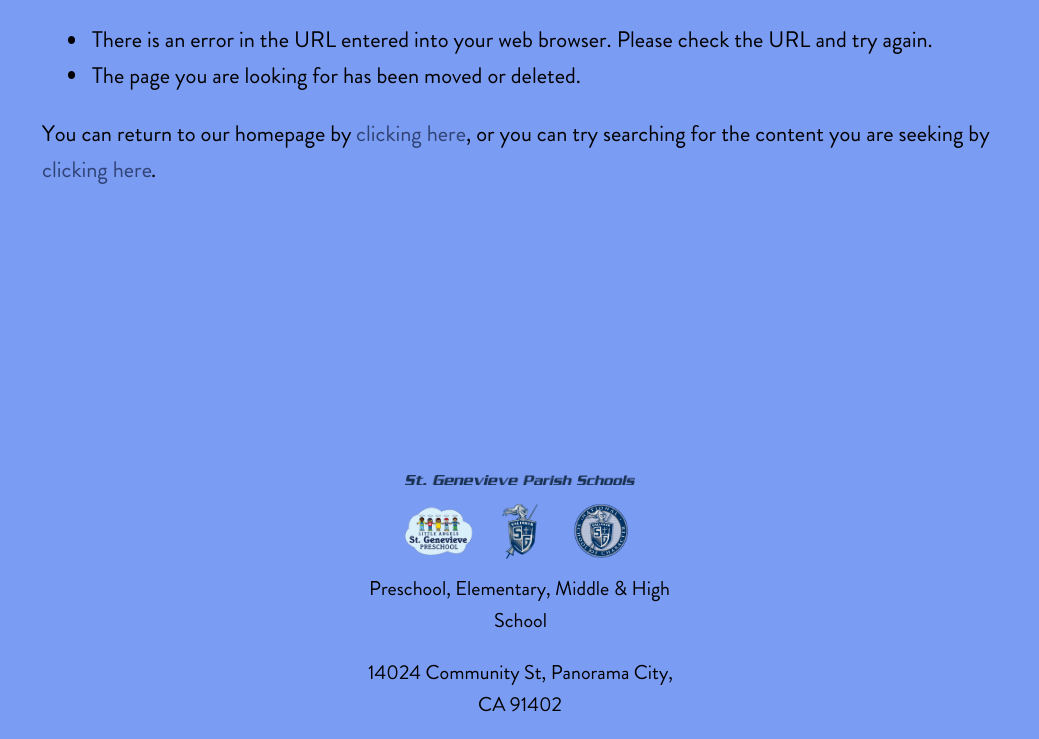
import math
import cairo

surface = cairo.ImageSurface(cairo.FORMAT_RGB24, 1039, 739)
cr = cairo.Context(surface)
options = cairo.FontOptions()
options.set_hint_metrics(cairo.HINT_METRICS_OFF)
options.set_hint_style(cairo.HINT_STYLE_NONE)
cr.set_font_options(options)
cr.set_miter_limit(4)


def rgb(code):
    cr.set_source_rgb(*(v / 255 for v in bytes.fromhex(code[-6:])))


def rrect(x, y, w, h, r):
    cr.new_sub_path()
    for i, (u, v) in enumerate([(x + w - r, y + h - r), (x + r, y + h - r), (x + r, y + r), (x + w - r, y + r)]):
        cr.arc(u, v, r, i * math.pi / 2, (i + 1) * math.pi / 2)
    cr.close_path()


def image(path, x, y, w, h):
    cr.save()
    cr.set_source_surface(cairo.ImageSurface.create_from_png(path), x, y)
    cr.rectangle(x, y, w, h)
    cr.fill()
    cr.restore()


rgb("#7b9cf3")
cr.paint()
rgb("#000000")
rrect(68, 36, 7, 8, 3.5)
cr.fill()
rrect(68, 71, 7, 8, 3.5)
cr.fill()
image("img/1.png", 405, 475, 230, 10)
image("img/2.png", 405, 507, 68, 48)
image("img/3.png", 502, 503, 36, 56)
image("img/4.png", 573, 503, 55, 55)
cr.select_font_face("Brandon Grotesque")
cr.set_font_size(22.5)
for x, y, s in [
    (92, 47, "There is an error in the URL entered into your web browser. Please check the URL and try again."),
    (92, 83, "The page you are looking for has been moved or deleted."),
    (42, 141, "You can return to our homepage by"),
]:
    cr.move_to(x, y)
    cr.show_text(s)
rgb("#304376")
cr.move_to(356, 141)
cr.show_text("clicking here")
rgb("#000000")
cr.move_to(466, 141)
cr.show_text(", or you can try searching for the content you are seeking by")
rgb("#304376")
cr.move_to(42, 177)
cr.show_text("clicking here")
rgb("#000000")
cr.move_to(151, 177)
cr.show_text(".")
cr.set_font_size(20)
for x, y, s in [
    (369, 595, "Preschool, Elementary, Middle & High"),
    (494, 627, "School"),
    (368, 679, "14024 Community St, Panorama City,"),
    (478, 711, "CA 91402"),
]:
    cr.move_to(x, y)
    cr.show_text(s)
surface.write_to_png("page.png")
